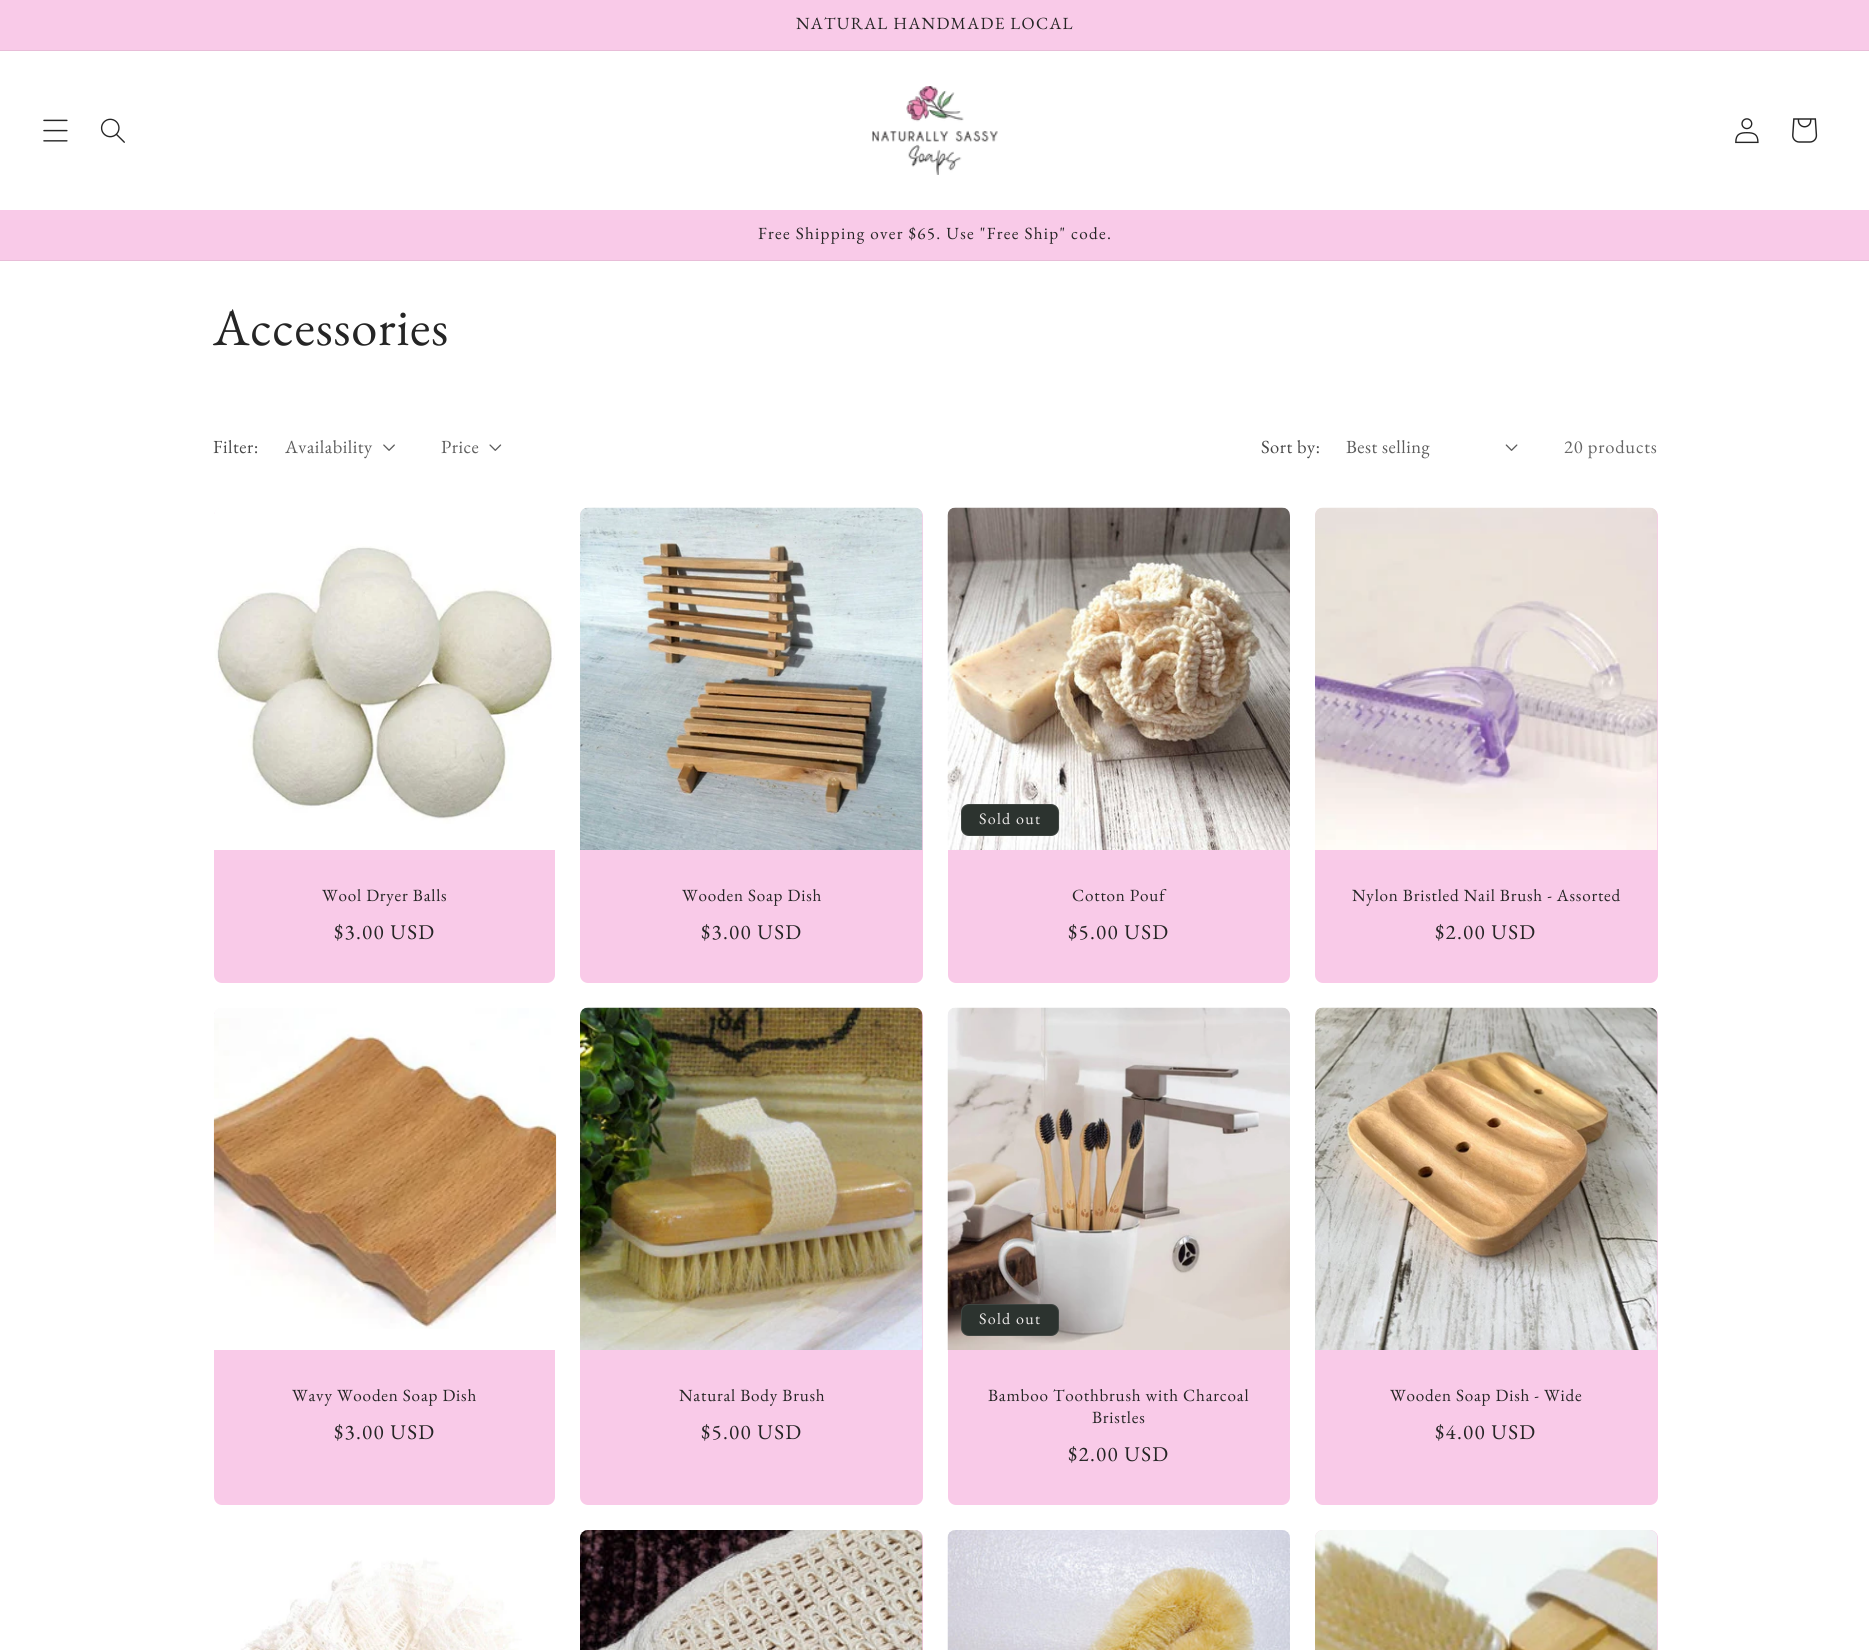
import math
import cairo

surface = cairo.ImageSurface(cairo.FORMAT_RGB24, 1869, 1650)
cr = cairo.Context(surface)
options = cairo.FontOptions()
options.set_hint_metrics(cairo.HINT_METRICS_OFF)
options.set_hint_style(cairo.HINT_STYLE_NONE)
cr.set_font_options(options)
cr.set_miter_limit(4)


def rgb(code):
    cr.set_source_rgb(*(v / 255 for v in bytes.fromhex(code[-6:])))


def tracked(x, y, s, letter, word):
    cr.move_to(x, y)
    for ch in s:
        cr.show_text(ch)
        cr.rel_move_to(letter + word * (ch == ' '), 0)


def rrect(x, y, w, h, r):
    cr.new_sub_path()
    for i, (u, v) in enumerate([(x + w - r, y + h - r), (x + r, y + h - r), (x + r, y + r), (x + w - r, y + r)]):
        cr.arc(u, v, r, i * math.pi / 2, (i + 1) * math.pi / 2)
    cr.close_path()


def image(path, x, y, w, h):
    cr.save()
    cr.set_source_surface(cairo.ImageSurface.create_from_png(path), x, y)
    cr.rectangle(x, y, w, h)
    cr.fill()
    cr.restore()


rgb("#f9cae8")
cr.paint()
rgb("#e8bdd8")
cr.rectangle(0, 50, 1869, 1)
cr.fill()
rgb("#ffffff")
cr.rectangle(0, 51, 1869, 159)
cr.fill()
image("img/1.png", 43, 119, 25, 23)
image("img/2.png", 100, 118, 25, 25)
image("img/3.png", 872, 86, 126, 89)
image("img/4.png", 1735, 118, 24, 26)
image("img/5.png", 1792, 118, 26, 25)
rgb("#e8bdd8")
cr.rectangle(0, 260, 1869, 1)
cr.fill()
rgb("#ffffff")
cr.rectangle(0, 261, 1869, 1389)
cr.fill()
image("img/6.png", 383, 444, 12, 7)
image("img/7.png", 489, 444, 13, 7)
image("img/8.png", 1505, 444, 13, 7)
rgb("#f9cae8")
rrect(214, 508, 341, 475, 8)
cr.fill()
image("img/9.png", 214, 508, 341, 342)
rrect(580, 508, 343, 475, 8)
cr.fill()
image("img/10.png", 580, 507, 343, 343)
rrect(948, 508, 342, 475, 8)
cr.fill()
image("img/11.png", 947, 507, 343, 343)
rgb("#2c332f")
rrect(961, 804, 98, 32, 8)
cr.fill()
rrect(961.5, 804.5, 97, 31, 7.5)
cr.set_source_rgba(0.937, 0.925, 0.925, 0.1)
cr.set_line_width(1)
cr.stroke()
rgb("#f9cae8")
rrect(1315, 508, 343, 475, 8)
cr.fill()
image("img/12.png", 1315, 507, 343, 343)
rrect(214, 1008, 341, 497, 8)
cr.fill()
image("img/13.png", 213, 1008, 344, 342)
rrect(580, 1008, 343, 497, 8)
cr.fill()
image("img/14.png", 580, 1007, 343, 343)
rrect(948, 1008, 342, 497, 8)
cr.fill()
image("img/15.png", 947, 1007, 343, 343)
rgb("#2c332f")
rrect(961, 1304, 98, 32, 8)
cr.fill()
rrect(961.5, 1304.5, 97, 31, 7.5)
cr.set_source_rgba(0.937, 0.925, 0.925, 0.1)
cr.stroke()
rgb("#f9cae8")
rrect(1315, 1008, 343, 497, 8)
cr.fill()
image("img/16.png", 1315, 1007, 343, 343)
image("img/17.png", 214, 1530, 341, 120)
rrect(580, 1530, 343, 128, 8)
cr.fill()
image("img/18.png", 580, 1530, 343, 120)
image("img/19.png", 947, 1530, 343, 120)
rrect(1315, 1530, 343, 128, 8)
cr.fill()
image("img/20.png", 1315, 1530, 343, 120)
cr.select_font_face("EB Garamond")
cr.set_font_size(17.1)
rgb("#252525")
tracked(796, 29, "NATURAL HANDMADE LOCAL", 1.3, 0)
tracked(758, 239, "Free Shipping over $65. Use \"Free Ship\" code.", 1.3, 0)
cr.set_font_size(52.5)
tracked(213, 345, "Accessories", 0.8, 0)
cr.set_font_size(18.5)
rgb("#464646")
tracked(213, 453, "Filter:", 0.5, 0)
rgb("#5c5c5c")
tracked(285, 453, "Availability", 0.5, 0)
tracked(441, 453, "Price", 0.5, 0)
rgb("#464646")
tracked(1261, 453, "Sort by:", 0.5, 0)
rgb("#5c5c5c")
tracked(1346, 453, "Best selling", 0.5, 0)
rgb("#666666")
tracked(1564, 453, "20 products", 0.8, 0)
cr.set_font_size(17.1)
rgb("#252525")
tracked(322, 901, "Wool Dryer Balls", 0.8, 0)
cr.set_font_size(21)
tracked(334, 939, "$3.00 USD", 1.3, 0)
cr.set_font_size(17.1)
tracked(682, 901, "Wooden Soap Dish", 0.8, 0)
cr.set_font_size(21)
tracked(701, 939, "$3.00 USD", 1.3, 0)
cr.set_font_size(16)
rgb("#efecec")
tracked(979, 824, "Sold out", 1.3, 0)
cr.set_font_size(17.1)
rgb("#252525")
tracked(1072, 901, "Cotton Pouf", 0.8, 0)
cr.set_font_size(21)
tracked(1068, 939, "$5.00 USD", 1.3, 0)
cr.set_font_size(17.1)
tracked(1352, 901, "Nylon Bristled Nail Brush - Assorted", 0.8, 0)
cr.set_font_size(21)
tracked(1435, 939, "$2.00 USD", 1.3, 0)
cr.set_font_size(17.1)
tracked(292, 1401, "Wavy Wooden Soap Dish", 0.8, 0)
cr.set_font_size(21)
tracked(334, 1439, "$3.00 USD", 1.3, 0)
cr.set_font_size(17.1)
tracked(679, 1401, "Natural Body Brush", 0.8, 0)
cr.set_font_size(21)
tracked(701, 1439, "$5.00 USD", 1.3, 0)
cr.set_font_size(16)
rgb("#efecec")
tracked(979, 1324, "Sold out", 1.3, 0)
cr.set_font_size(17.1)
rgb("#252525")
tracked(988, 1401, "Bamboo Toothbrush with Charcoal", 0.8, 0)
tracked(1092, 1423, "Bristles", 0.8, 0)
cr.set_font_size(21)
tracked(1068, 1461, "$2.00 USD", 1.3, 0)
cr.set_font_size(17.1)
tracked(1390, 1401, "Wooden Soap Dish - Wide", 0.8, 0)
cr.set_font_size(21)
tracked(1435, 1439, "$4.00 USD", 1.3, 0)
surface.write_to_png("page.png")
